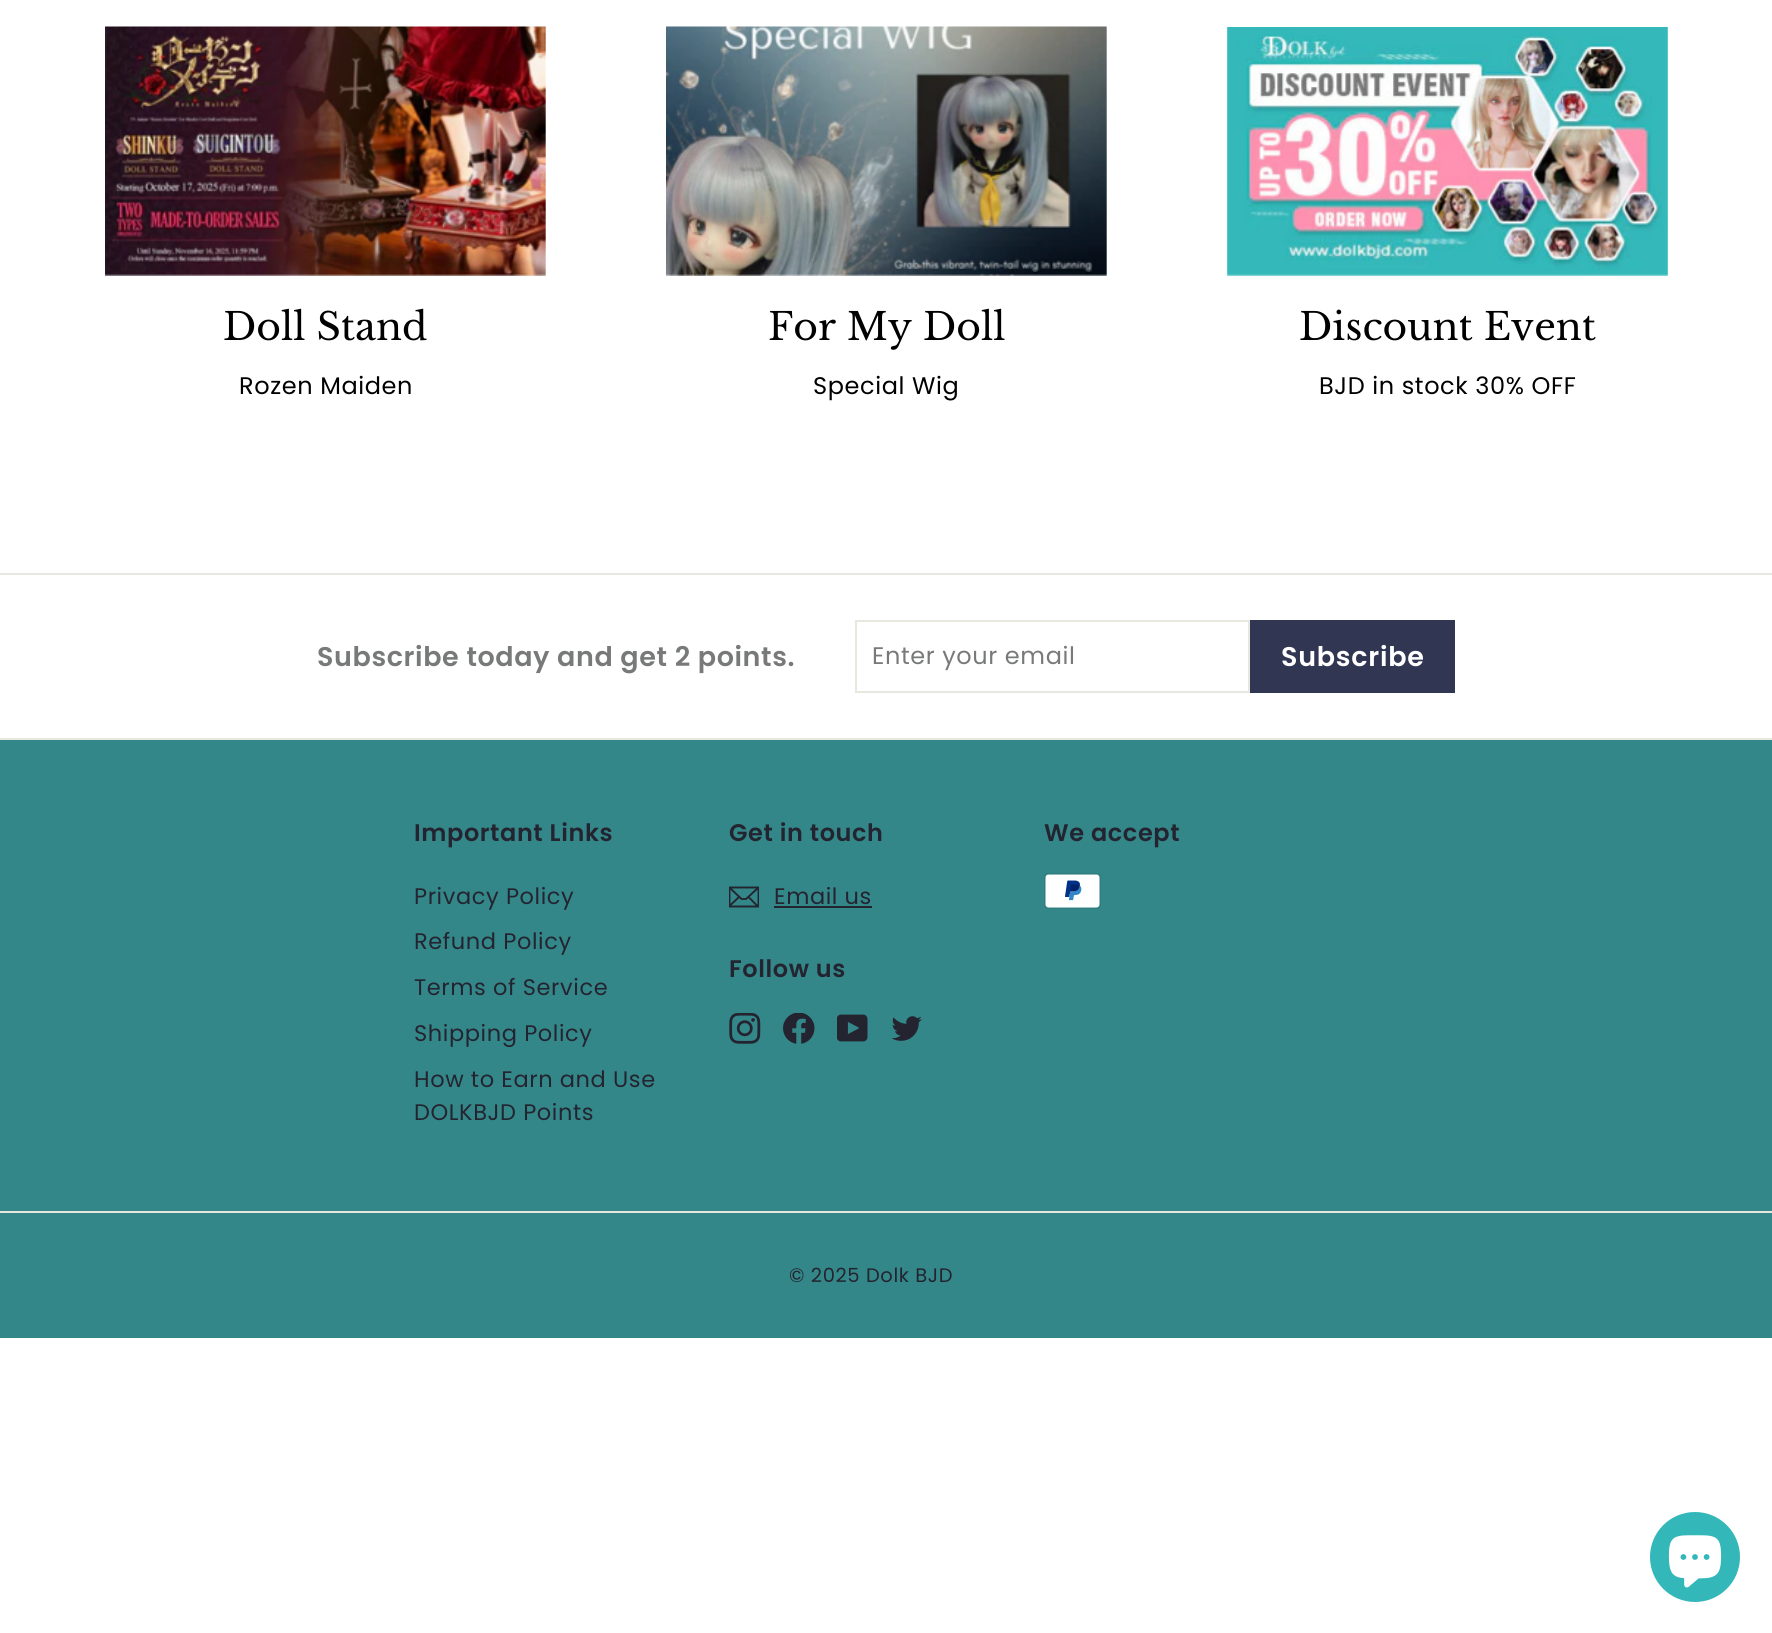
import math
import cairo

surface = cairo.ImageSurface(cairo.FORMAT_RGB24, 1772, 1633)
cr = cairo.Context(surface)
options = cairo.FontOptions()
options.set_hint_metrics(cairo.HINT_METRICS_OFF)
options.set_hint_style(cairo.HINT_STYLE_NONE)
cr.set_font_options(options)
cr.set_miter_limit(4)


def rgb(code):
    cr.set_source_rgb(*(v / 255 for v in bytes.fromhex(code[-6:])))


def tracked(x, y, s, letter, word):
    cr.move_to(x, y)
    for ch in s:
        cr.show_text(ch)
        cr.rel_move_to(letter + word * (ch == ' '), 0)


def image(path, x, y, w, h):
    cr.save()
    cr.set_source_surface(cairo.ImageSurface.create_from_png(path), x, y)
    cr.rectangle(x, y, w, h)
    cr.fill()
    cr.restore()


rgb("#ffffff")
cr.paint()
image("img/1.png", 105, 26, 441, 250)
image("img/2.png", 666, 26, 441, 250)
image("img/3.png", 1227, 27, 441, 249)
rgb("#e8e8e1")
cr.rectangle(0, 573, 1772, 2)
cr.fill()
cr.rectangle(856, 621, 393, 71)
cr.stroke()
for x, y, w, h, color in [
    (1250, 620, 205, 73, "#313652"),
    (0, 740, 1772, 598, "#338789"),
    (0, 738, 1772, 2, "#e8e8e1"),
]:
    rgb(color)
    cr.rectangle(x, y, w, h)
    cr.fill()
cr.save()
cr.rectangle(729, 882, 30, 30)
cr.clip()
cr.new_path()
cr.move_to(758.5, 906.5)
cr.line_to(729.5, 906.5)
cr.line_to(729.5, 887.5)
cr.line_to(758.5, 887.5)
cr.close_path()
cr.move_to(729.5, 887.5)
cr.line_to(741.5, 899)
cr.line_to(746, 899)
cr.line_to(758.5, 887.5)
cr.move_to(739, 897)
cr.line_to(729.5, 906)
cr.move_to(758, 906.5)
cr.line_to(748.5, 897)
rgb("#242430")
cr.set_line_width(1.9)
cr.stroke()
cr.restore()
rgb("#242430")
cr.rectangle(774, 906, 98, 2)
cr.fill()
image("img/4.png", 729, 1013, 32, 31)
image("img/5.png", 783, 1013, 32, 31)
image("img/6.png", 837, 1014, 31, 28)
image("img/7.png", 891, 1016, 31, 25)
image("img/8.png", 1044, 873, 57, 36)
rgb("#e8e8e1")
cr.rectangle(0, 1211, 1772, 2)
cr.fill()
rgb("#33b7b9")
cr.arc(1695, 1557, 45, 0, 2 * math.pi)
cr.fill()
image("img/9.png", 1668, 1535, 54, 53)
cr.select_font_face("Libre Baskerville")
cr.set_font_size(37.75)
rgb("#000000")
cr.move_to(223, 340)
cr.show_text("Doll Stand")
cr.select_font_face("Poppins")
cr.set_font_size(24)
tracked(239, 394, "Rozen Maiden", 0.6, 0)
cr.select_font_face("Libre Baskerville")
cr.set_font_size(37.75)
cr.move_to(768, 340)
cr.show_text("For My Doll")
cr.select_font_face("Poppins")
cr.set_font_size(24)
tracked(813, 394, "Special Wig", 0.6, 0)
cr.select_font_face("Libre Baskerville")
cr.set_font_size(37.75)
cr.move_to(1299, 340)
cr.show_text("Discount Event")
cr.select_font_face("Poppins")
cr.set_font_size(24)
tracked(1319, 394, "BJD in stock 30% OFF", 0.6, 0)
cr.select_font_face("Poppins SemiBold")
cr.set_font_size(27)
rgb("#787979")
tracked(317, 666, "Subscribe today and get 2 points.", 0.6, 0)
cr.select_font_face("Poppins")
cr.set_font_size(24)
tracked(872, 664, "Enter your email", 0.6, 0)
cr.select_font_face("Poppins SemiBold")
cr.set_font_size(27)
rgb("#ffffff")
tracked(1281, 666, "Subscribe", 0.75, 0)
cr.set_font_size(24)
rgb("#242430")
tracked(414, 841, "Important Links", 0.6, 0)
cr.select_font_face("Poppins")
cr.set_font_size(22.5)
for x, y, s in [
    (414, 904, "Privacy Policy"),
    (414, 949, "Refund Policy"),
    (414, 995, "Terms of Service"),
    (414, 1041, "Shipping Policy"),
    (414, 1087, "How to Earn and Use"),
    (414, 1120, "DOLKBJD Points"),
]:
    tracked(x, y, s, 0.6, 0)
cr.select_font_face("Poppins SemiBold")
cr.set_font_size(24)
tracked(729, 841, "Get in touch", 0.6, 0)
cr.select_font_face("Poppins")
cr.set_font_size(22.5)
tracked(774, 904, "Email us", 0.6, 0)
cr.select_font_face("Poppins SemiBold")
cr.set_font_size(24)
tracked(729, 977, "Follow us", 0.6, 0)
tracked(1044, 841, "We accept", 0.6, 0)
cr.select_font_face("Poppins")
cr.set_font_size(19.5)
tracked(789, 1282, "© 2025 Dolk BJD", 0.6, 0)
surface.write_to_png("page.png")
